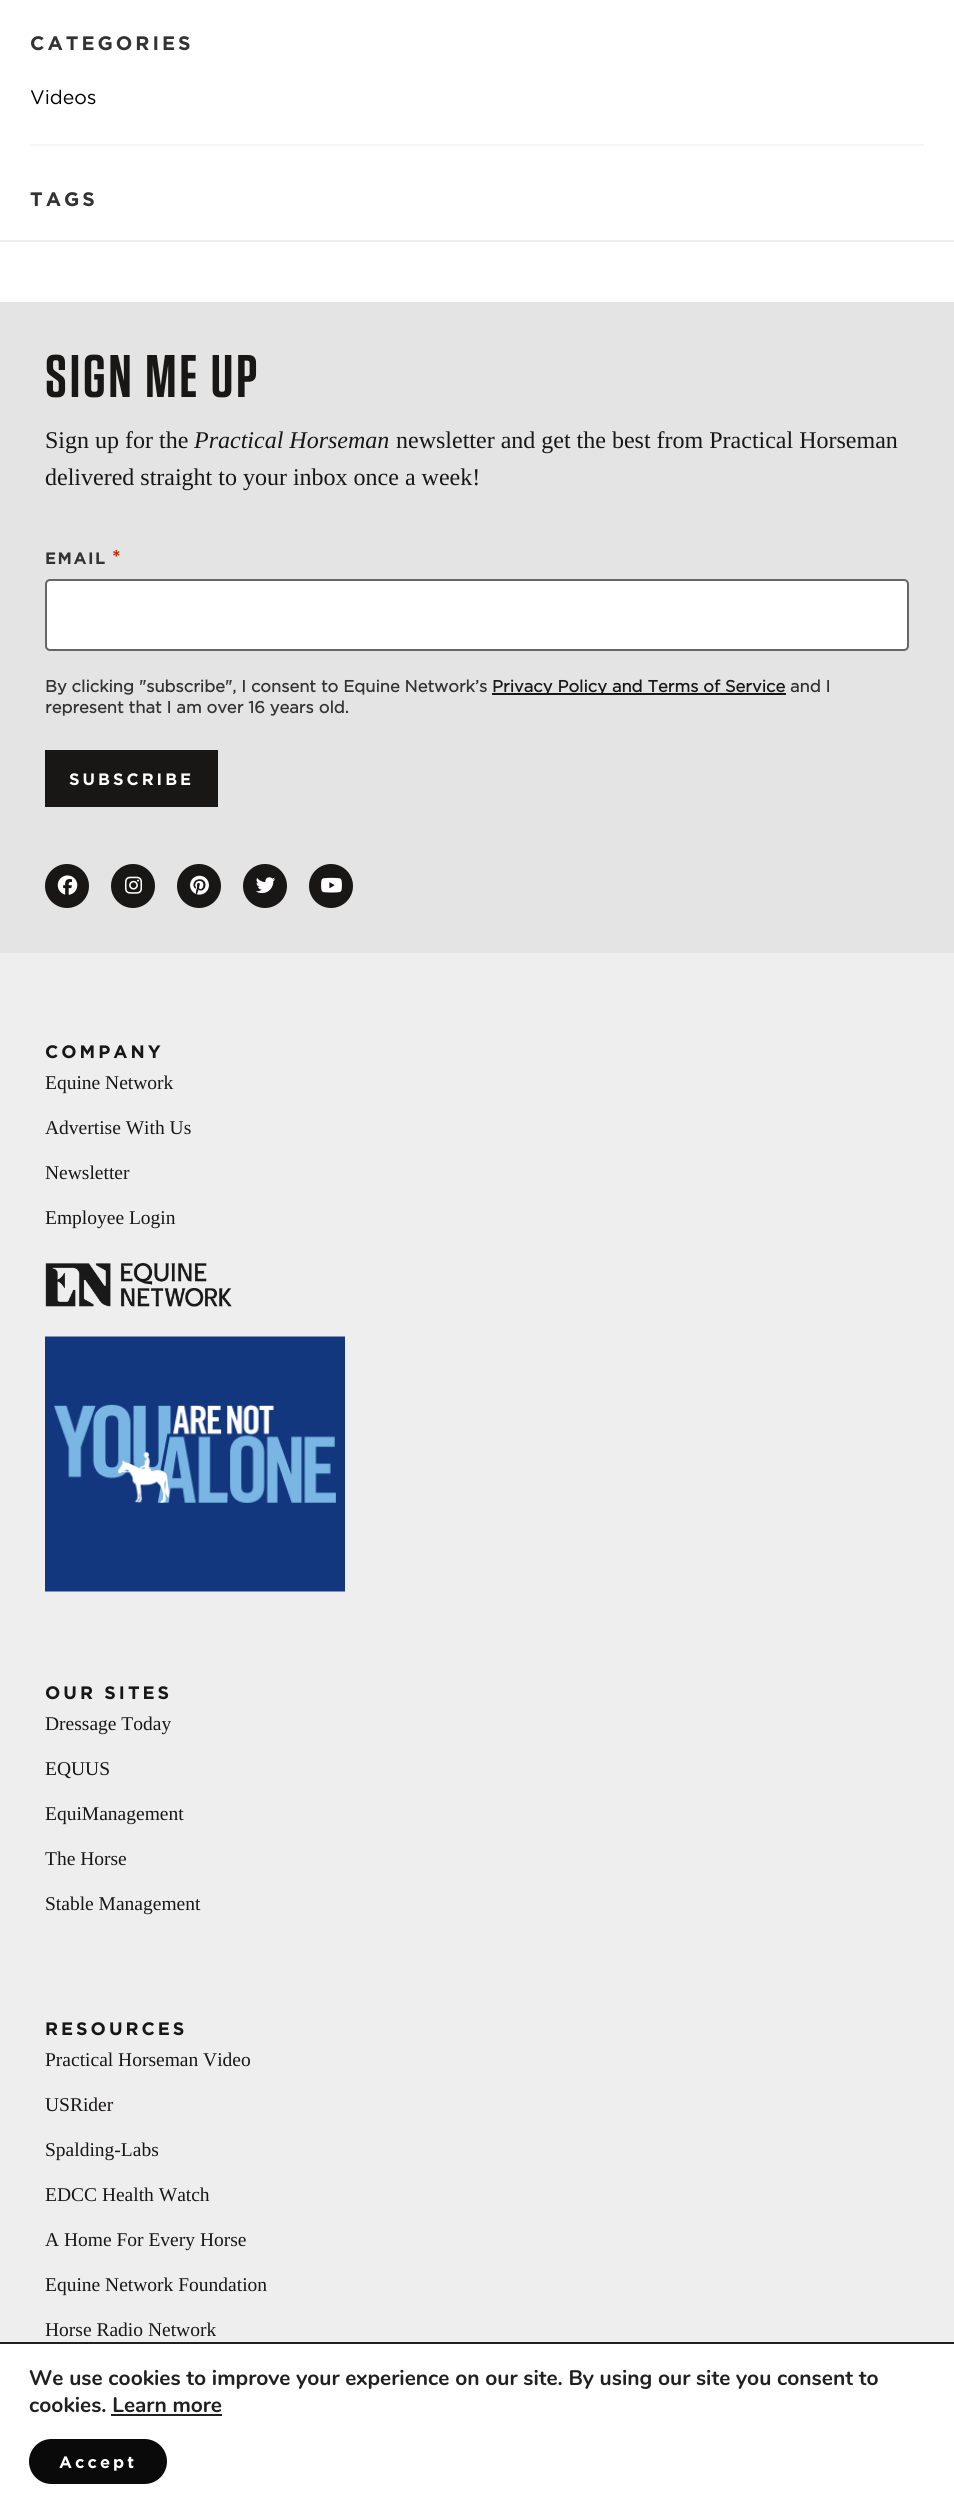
import math
import cairo

surface = cairo.ImageSurface(cairo.FORMAT_RGB24, 954, 2511)
cr = cairo.Context(surface)
options = cairo.FontOptions()
options.set_hint_metrics(cairo.HINT_METRICS_OFF)
options.set_hint_style(cairo.HINT_STYLE_NONE)
cr.set_font_options(options)
cr.set_miter_limit(4)


def rgb(code):
    cr.set_source_rgb(*(v / 255 for v in bytes.fromhex(code[-6:])))


def tracked(x, y, s, letter, word):
    cr.move_to(x, y)
    for ch in s:
        cr.show_text(ch)
        cr.rel_move_to(letter + word * (ch == ' '), 0)


def rrect(x, y, w, h, r):
    cr.new_sub_path()
    for i, (u, v) in enumerate([(x + w - r, y + h - r), (x + r, y + h - r), (x + r, y + r), (x + w - r, y + r)]):
        cr.arc(u, v, r, i * math.pi / 2, (i + 1) * math.pi / 2)
    cr.close_path()


def image(path, x, y, w, h):
    cr.save()
    cr.set_source_surface(cairo.ImageSurface.create_from_png(path), x, y)
    cr.rectangle(x, y, w, h)
    cr.fill()
    cr.restore()


rgb("#ffffff")
cr.paint()
for x, y, w, h, color in [
    (30, 144, 894, 2, "#f5f5f5"),
    (0, 240, 954, 2, "#eeeeee"),
    (0, 953, 954, 1389, "#eeeeee"),
    (0, 302, 954, 651, "#e4e4e4"),
]:
    rgb(color)
    cr.rectangle(x, y, w, h)
    cr.fill()
rgb("#ffffff")
rrect(46, 580, 862, 70, 4)
cr.fill_preserve()
rgb("#666666")
cr.stroke()
rgb("#191616")
cr.rectangle(492, 693, 294, 2)
cr.fill()
cr.rectangle(45, 750, 173, 57)
cr.fill()
cr.arc(67, 886, 22, 0, 2 * math.pi)
cr.fill()
image("img/1.png", 57, 875, 21, 20)
cr.arc(133, 886, 22, 0, 2 * math.pi)
cr.fill()
image("img/2.png", 124, 876, 19, 18)
cr.arc(199, 886, 22, 0, 2 * math.pi)
cr.fill()
image("img/3.png", 190, 875, 19, 20)
cr.arc(265, 886, 22, 0, 2 * math.pi)
cr.fill()
image("img/4.png", 256, 877, 20, 17)
cr.arc(331, 886, 22, 0, 2 * math.pi)
cr.fill()
image("img/5.png", 321, 877, 21, 16)
image("img/6.png", 45, 1263, 187, 44)
image("img/7.png", 45, 1336, 300, 256)
rgb("#202020")
cr.rectangle(0, 2342, 954, 2)
cr.fill()
cr.rectangle(111, 2414, 111, 2)
cr.fill()
rgb("#0a0a0a")
rrect(29, 2439, 138, 45, 22.5)
cr.fill()
cr.select_font_face("Gotham", cairo.FONT_SLANT_NORMAL, cairo.FONT_WEIGHT_BOLD)
cr.set_font_size(19.5)
rgb("#333333")
tracked(30, 50, "CATEGORIES", 3, 0)
cr.select_font_face("Gotham")
rgb("#000000")
cr.move_to(30, 104)
cr.show_text("Videos")
cr.select_font_face("Gotham", cairo.FONT_SLANT_NORMAL, cairo.FONT_WEIGHT_BOLD)
rgb("#333333")
tracked(30, 206, "TAGS", 3, 0)
cr.select_font_face("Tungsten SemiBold")
cr.set_font_size(60)
rgb("#191616")
tracked(45, 397, "SIGN ME UP", 3, 0)
cr.select_font_face("Liberation Serif")
cr.set_font_size(24)
cr.move_to(45, 448)
cr.show_text("Sign up for the")
cr.select_font_face("Liberation Serif", cairo.FONT_SLANT_ITALIC)
cr.move_to(194, 448)
cr.show_text("Practical Horseman")
cr.select_font_face("Liberation Serif")
cr.move_to(396, 448)
cr.show_text("newsletter and get the best from Practical Horseman")
cr.move_to(45, 485)
cr.show_text("delivered straight to your inbox once a week!")
cr.select_font_face("Gotham", cairo.FONT_SLANT_NORMAL, cairo.FONT_WEIGHT_BOLD)
cr.set_font_size(16.5)
rgb("#333333")
tracked(45, 564, "EMAIL", 1.5, 0)
cr.set_font_size(20)
rgb("#c02b0a")
tracked(112, 564, "*", 1.5, 0)
cr.select_font_face("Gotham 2", cairo.FONT_SLANT_NORMAL, cairo.FONT_WEIGHT_BOLD)
cr.set_font_size(16.5)
rgb("#333333")
cr.move_to(45, 692)
cr.show_text("By clicking \"subscribe\", I consent to Equine Network’s")
rgb("#191616")
cr.move_to(492, 692)
cr.show_text("Privacy Policy and Terms of Service")
rgb("#333333")
cr.move_to(790, 692)
cr.show_text("and I")
cr.move_to(45, 713)
cr.show_text("represent that I am over 16 years old.")
cr.select_font_face("Gotham", cairo.FONT_SLANT_NORMAL, cairo.FONT_WEIGHT_BOLD)
rgb("#ffffff")
tracked(69, 785, "SUBSCRIBE", 3, 0)
cr.set_font_size(18)
rgb("#191616")
tracked(45, 1058, "COMPANY", 3, 0)
cr.select_font_face("Liberation Serif")
cr.set_font_size(19.5)
for x, y, s in [
    (45, 1089, "Equine Network"),
    (45, 1134, "Advertise With Us"),
    (45, 1179, "Newsletter"),
    (45, 1224, "Employee Login"),
]:
    cr.move_to(x, y)
    cr.show_text(s)
cr.select_font_face("Gotham", cairo.FONT_SLANT_NORMAL, cairo.FONT_WEIGHT_BOLD)
cr.set_font_size(18)
tracked(45, 1699, "OUR SITES", 3, 0)
cr.select_font_face("Liberation Serif")
cr.set_font_size(19.5)
for x, y, s in [
    (45, 1730, "Dressage Today"),
    (45, 1775, "EQUUS"),
    (45, 1820, "EquiManagement"),
    (45, 1865, "The Horse"),
    (45, 1910, "Stable Management"),
]:
    cr.move_to(x, y)
    cr.show_text(s)
cr.select_font_face("Gotham", cairo.FONT_SLANT_NORMAL, cairo.FONT_WEIGHT_BOLD)
cr.set_font_size(18)
tracked(45, 2035, "RESOURCES", 3, 0)
cr.select_font_face("Liberation Serif")
cr.set_font_size(19.5)
for x, y, s in [
    (45, 2066, "Practical Horseman Video"),
    (45, 2111, "USRider"),
    (45, 2156, "Spalding-Labs"),
    (45, 2201, "EDCC Health Watch"),
    (45, 2246, "A Home For Every Horse"),
    (45, 2291, "Equine Network Foundation"),
    (45, 2336, "Horse Radio Network"),
]:
    cr.move_to(x, y)
    cr.show_text(s)
cr.select_font_face("Nunito", cairo.FONT_SLANT_NORMAL, cairo.FONT_WEIGHT_BOLD)
cr.set_font_size(21)
rgb("#202020")
cr.move_to(29, 2385)
cr.show_text("We use cookies to improve your experience on our site. By using our site you consent to")
cr.move_to(29, 2412)
cr.show_text("cookies. Learn more")
cr.select_font_face("Gotham", cairo.FONT_SLANT_NORMAL, cairo.FONT_WEIGHT_BOLD)
cr.set_font_size(16.5)
rgb("#ffffff")
tracked(59, 2468, "Accept", 3, 0)
surface.write_to_png("page.png")
